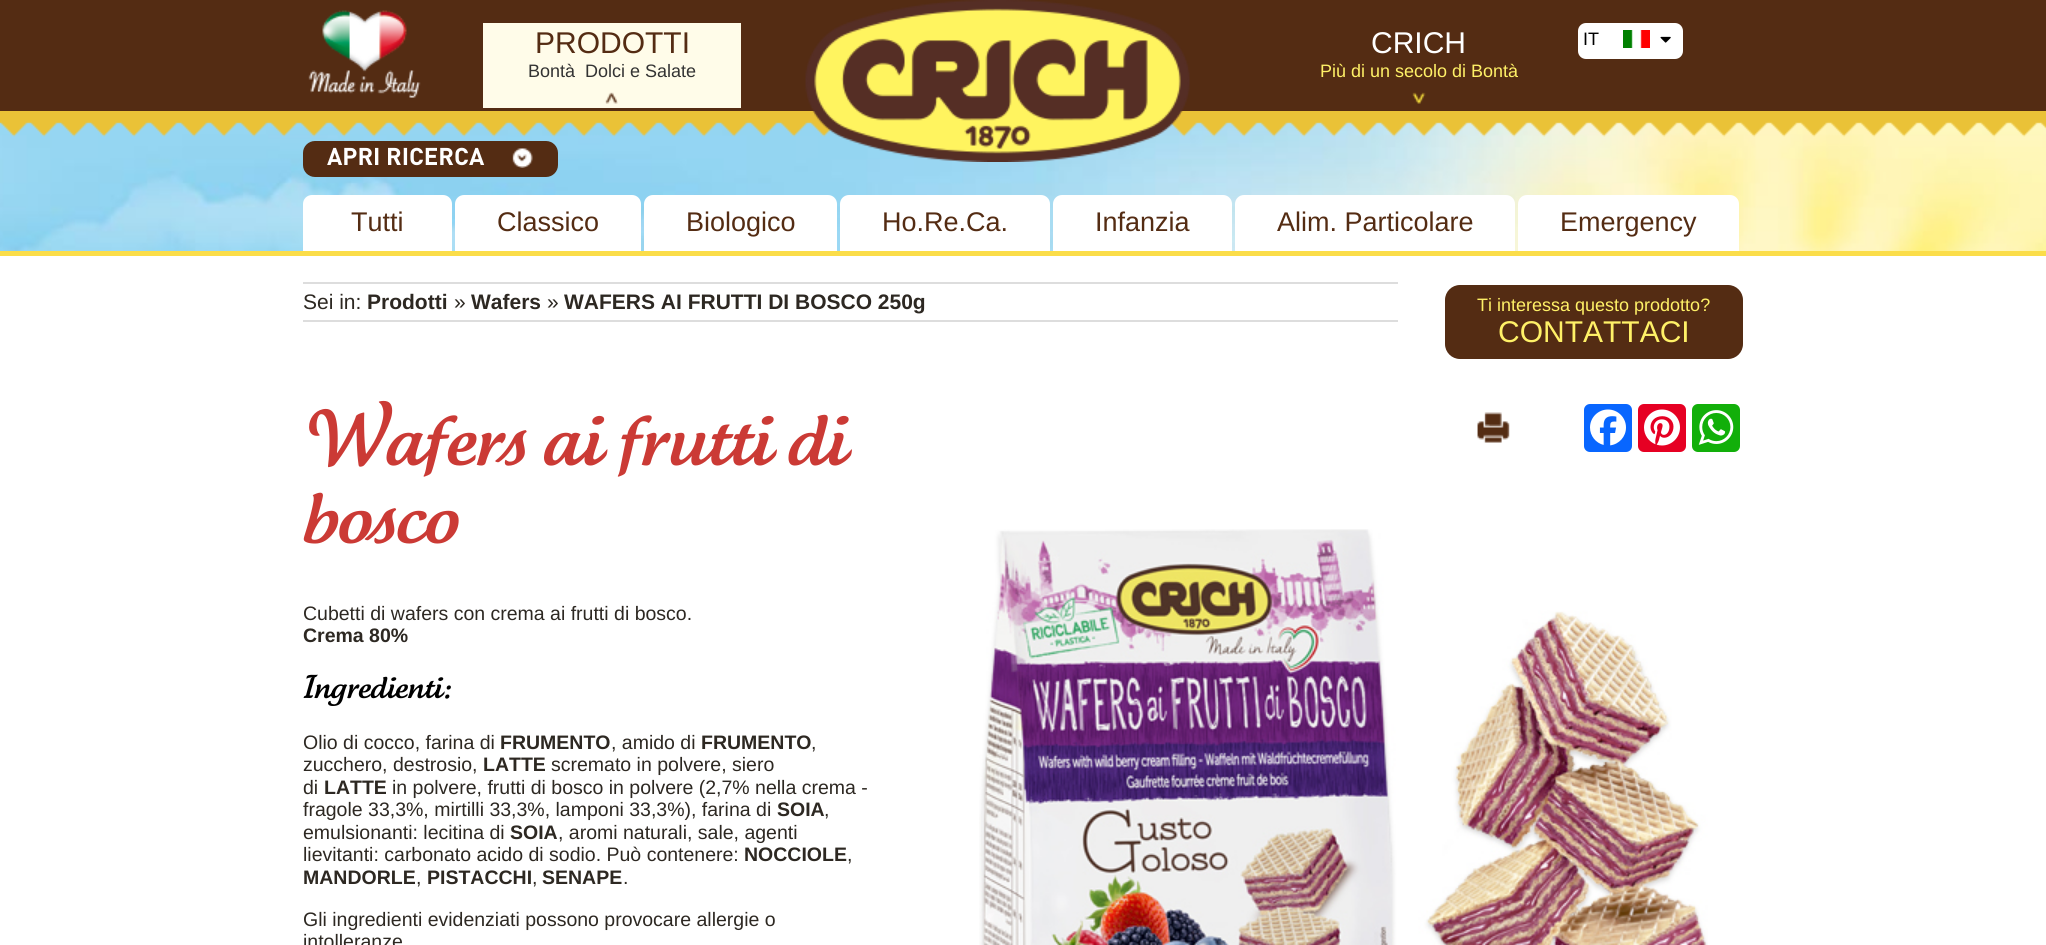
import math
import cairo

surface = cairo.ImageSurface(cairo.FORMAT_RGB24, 2046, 945)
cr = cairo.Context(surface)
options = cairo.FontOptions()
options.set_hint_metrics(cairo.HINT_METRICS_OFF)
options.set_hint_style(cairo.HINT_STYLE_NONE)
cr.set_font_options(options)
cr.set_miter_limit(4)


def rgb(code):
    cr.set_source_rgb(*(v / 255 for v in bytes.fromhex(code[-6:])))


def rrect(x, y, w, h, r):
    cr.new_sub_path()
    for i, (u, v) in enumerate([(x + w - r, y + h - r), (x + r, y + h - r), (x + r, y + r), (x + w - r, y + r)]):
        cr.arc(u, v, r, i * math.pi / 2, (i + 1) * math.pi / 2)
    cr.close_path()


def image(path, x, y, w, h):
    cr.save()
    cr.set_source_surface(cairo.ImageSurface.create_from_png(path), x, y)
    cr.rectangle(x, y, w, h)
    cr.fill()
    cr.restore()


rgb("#ffffff")
cr.paint()
rgb("#542c13")
cr.rectangle(0, 0, 2046, 111)
cr.fill()
image("img/1.png", 308, 10, 113, 88)
image("img/8.png", 0, 121, 2046, 130)
image("img/7.png", 0, 111, 2046, 26)
image("img/2.png", 805, 0, 385, 162)
rgb("#fffce9")
cr.rectangle(483, 23, 258, 85)
cr.fill()
image("img/3.png", 605, 92, 13, 12)
image("img/4.png", 1412, 92, 14, 12)
rgb("#ffffff")
rrect(1578, 23, 105, 36, 8)
cr.fill()
image("img/5.png", 1623, 30, 27, 18)
image("img/6.png", 1660, 36, 11, 7)
rgb("#fbdd49")
cr.rectangle(0, 251, 2046, 5)
cr.fill()
rgb("#542c13")
rrect(303, 141, 255, 36, 12)
cr.fill()
image("img/9.png", 512, 148, 21, 20)
rgb("#ffffff")
cr.new_path()
cr.move_to(312, 195)
cr.line_to(443, 195)
cr.curve_to(448, 195, 452, 199, 452, 204)
cr.line_to(452, 251)
cr.line_to(303, 251)
cr.line_to(303, 204)
cr.curve_to(303, 199, 307, 195, 312, 195)
cr.close_path()
cr.fill()
cr.new_path()
cr.move_to(464, 195)
cr.line_to(632, 195)
cr.curve_to(637, 195, 641, 199, 641, 204)
cr.line_to(641, 251)
cr.line_to(455, 251)
cr.line_to(455, 204)
cr.curve_to(455, 199, 459, 195, 464, 195)
cr.close_path()
cr.fill()
cr.new_path()
cr.move_to(653, 195)
cr.line_to(828, 195)
cr.curve_to(833, 195, 837, 199, 837, 204)
cr.line_to(837, 251)
cr.line_to(644, 251)
cr.line_to(644, 204)
cr.curve_to(644, 199, 648, 195, 653, 195)
cr.close_path()
cr.fill()
cr.new_path()
cr.move_to(849, 195)
cr.line_to(1041, 195)
cr.curve_to(1046, 195, 1050, 199, 1050, 204)
cr.line_to(1050, 251)
cr.line_to(840, 251)
cr.line_to(840, 204)
cr.curve_to(840, 199, 844, 195, 849, 195)
cr.close_path()
cr.fill()
cr.new_path()
cr.move_to(1062, 195)
cr.line_to(1223, 195)
cr.curve_to(1228, 195, 1232, 199, 1232, 204)
cr.line_to(1232, 251)
cr.line_to(1053, 251)
cr.line_to(1053, 204)
cr.curve_to(1053, 199, 1057, 195, 1062, 195)
cr.close_path()
cr.fill()
cr.new_path()
cr.move_to(1244, 195)
cr.line_to(1506, 195)
cr.curve_to(1511, 195, 1515, 199, 1515, 204)
cr.line_to(1515, 251)
cr.line_to(1235, 251)
cr.line_to(1235, 204)
cr.curve_to(1235, 199, 1239, 195, 1244, 195)
cr.close_path()
cr.fill()
cr.new_path()
cr.move_to(1527, 195)
cr.line_to(1730, 195)
cr.curve_to(1735, 195, 1739, 199, 1739, 204)
cr.line_to(1739, 251)
cr.line_to(1518, 251)
cr.line_to(1518, 204)
cr.curve_to(1518, 199, 1522, 195, 1527, 195)
cr.close_path()
cr.fill()
rgb("#dddddd")
cr.rectangle(303, 282, 1095, 2)
cr.fill()
cr.rectangle(303, 320, 1095, 2)
cr.fill()
rgb("#542c13")
rrect(1445, 285, 298, 74, 15)
cr.fill()
image("img/10.png", 1477, 412, 33, 31)
rgb("#0866ff")
rrect(1584, 404, 48, 48, 6)
cr.fill()
image("img/11.png", 1590, 409, 36, 37)
rgb("#e60023")
rrect(1638, 404, 48, 48, 6)
cr.fill()
image("img/12.png", 1644, 409, 36, 37)
rgb("#12af0a")
rrect(1692, 404, 48, 48, 6)
cr.fill()
image("img/13.png", 1698, 410, 36, 35)
image("img/14.png", 979, 529, 729, 416)
cr.select_font_face("Liberation Sans")
cr.set_font_size(30)
rgb("#542c13")
cr.move_to(535, 53)
cr.show_text("PRODOTTI")
cr.set_font_size(18)
rgb("#333333")
cr.move_to(528, 77)
cr.show_text("Bontà  Dolci e Salate")
cr.set_font_size(30)
rgb("#ffffff")
cr.move_to(1371, 53)
cr.show_text("CRICH")
cr.set_font_size(18)
rgb("#fff167")
cr.move_to(1320, 77)
cr.show_text("Più di un secolo di Bontà")
rgb("#000000")
cr.move_to(1583, 45)
cr.show_text("IT")
cr.select_font_face("DIN", cairo.FONT_SLANT_NORMAL, cairo.FONT_WEIGHT_BOLD)
cr.set_font_size(24)
rgb("#ffffff")
cr.move_to(327, 165)
cr.show_text("APRI RICERCA")
cr.select_font_face("Liberation Sans")
cr.set_font_size(27)
rgb("#542c13")
for x, y, s in [
    (351, 231, "Tutti"),
    (497, 231, "Classico"),
    (686, 231, "Biologico"),
    (882, 231, "Ho.Re.Ca."),
    (1095, 231, "Infanzia"),
    (1277, 231, "Alim. Particolare"),
    (1560, 231, "Emergency"),
]:
    cr.move_to(x, y)
    cr.show_text(s)
cr.set_font_size(21)
rgb("#2d2822")
cr.move_to(303, 309)
cr.show_text("Sei in:")
cr.select_font_face("Liberation Sans", cairo.FONT_SLANT_NORMAL, cairo.FONT_WEIGHT_BOLD)
cr.move_to(367, 309)
cr.show_text("Prodotti")
cr.select_font_face("Liberation Sans")
cr.move_to(454, 309)
cr.show_text("»")
cr.select_font_face("Liberation Sans", cairo.FONT_SLANT_NORMAL, cairo.FONT_WEIGHT_BOLD)
cr.move_to(471, 309)
cr.show_text("Wafers")
cr.select_font_face("Liberation Sans")
cr.move_to(547, 309)
cr.show_text("»")
cr.select_font_face("Liberation Sans", cairo.FONT_SLANT_NORMAL, cairo.FONT_WEIGHT_BOLD)
cr.move_to(564, 309)
cr.show_text("WAFERS AI FRUTTI DI BOSCO 250g")
cr.select_font_face("Liberation Sans")
cr.set_font_size(18)
rgb("#fff167")
cr.move_to(1477, 311)
cr.show_text("Ti interessa questo prodotto?")
cr.set_font_size(30)
cr.move_to(1498, 342)
cr.show_text("CONTATTACI")
cr.select_font_face("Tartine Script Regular")
cr.set_font_size(78)
rgb("#cb3a35")
cr.move_to(303, 465)
cr.show_text("Wafers ai frutti di")
cr.move_to(303, 543)
cr.show_text("bosco")
cr.select_font_face("Liberation Sans")
cr.set_font_size(19.5)
rgb("#2d2822")
cr.move_to(303, 620)
cr.show_text("Cubetti di wafers con crema ai frutti di bosco.")
cr.select_font_face("Liberation Sans", cairo.FONT_SLANT_NORMAL, cairo.FONT_WEIGHT_BOLD)
cr.move_to(303, 642)
cr.show_text("Crema 80%")
cr.select_font_face("Tartine Script Regular")
cr.set_font_size(33)
rgb("#000000")
cr.move_to(303, 698)
cr.show_text("Ingredienti:")
cr.select_font_face("Liberation Sans")
cr.set_font_size(19.5)
rgb("#2d2822")
cr.move_to(303, 749)
cr.show_text("Olio di cocco, farina di")
cr.select_font_face("Liberation Sans", cairo.FONT_SLANT_NORMAL, cairo.FONT_WEIGHT_BOLD)
cr.move_to(500, 749)
cr.show_text("FRUMENTO")
cr.select_font_face("Liberation Sans")
cr.move_to(611, 749)
cr.show_text(", amido di")
cr.select_font_face("Liberation Sans", cairo.FONT_SLANT_NORMAL, cairo.FONT_WEIGHT_BOLD)
cr.move_to(701, 749)
cr.show_text("FRUMENTO")
cr.select_font_face("Liberation Sans")
cr.move_to(811, 749)
cr.show_text(",")
cr.move_to(303, 771)
cr.show_text("zucchero, destrosio,")
cr.select_font_face("Liberation Sans", cairo.FONT_SLANT_NORMAL, cairo.FONT_WEIGHT_BOLD)
cr.move_to(483, 771)
cr.show_text("LATTE")
cr.select_font_face("Liberation Sans")
cr.move_to(551, 771)
cr.show_text("scremato in polvere, siero")
cr.move_to(303, 794)
cr.show_text("di")
cr.select_font_face("Liberation Sans", cairo.FONT_SLANT_NORMAL, cairo.FONT_WEIGHT_BOLD)
cr.move_to(324, 794)
cr.show_text("LATTE")
cr.select_font_face("Liberation Sans")
cr.move_to(392, 794)
cr.show_text("in polvere, frutti di bosco in polvere (2,7% nella crema -")
cr.move_to(303, 816)
cr.show_text("fragole 33,3%, mirtilli 33,3%, lamponi 33,3%), farina di")
cr.select_font_face("Liberation Sans", cairo.FONT_SLANT_NORMAL, cairo.FONT_WEIGHT_BOLD)
cr.move_to(777, 816)
cr.show_text("SOIA")
cr.select_font_face("Liberation Sans")
cr.move_to(824, 816)
cr.show_text(",")
cr.move_to(303, 839)
cr.show_text("emulsionanti: lecitina di")
cr.select_font_face("Liberation Sans", cairo.FONT_SLANT_NORMAL, cairo.FONT_WEIGHT_BOLD)
cr.move_to(510, 839)
cr.show_text("SOIA")
cr.select_font_face("Liberation Sans")
cr.move_to(558, 839)
cr.show_text(", aromi naturali, sale, agenti")
cr.move_to(303, 861)
cr.show_text("lievitanti: carbonato acido di sodio. Può contenere:")
cr.select_font_face("Liberation Sans", cairo.FONT_SLANT_NORMAL, cairo.FONT_WEIGHT_BOLD)
cr.move_to(744, 861)
cr.show_text("NOCCIOLE")
cr.select_font_face("Liberation Sans")
cr.move_to(847, 861)
cr.show_text(",")
cr.select_font_face("Liberation Sans", cairo.FONT_SLANT_NORMAL, cairo.FONT_WEIGHT_BOLD)
cr.move_to(303, 884)
cr.show_text("MANDORLE")
cr.select_font_face("Liberation Sans")
cr.move_to(416, 884)
cr.show_text(",")
cr.select_font_face("Liberation Sans", cairo.FONT_SLANT_NORMAL, cairo.FONT_WEIGHT_BOLD)
cr.move_to(427, 884)
cr.show_text("PISTACCHI")
cr.select_font_face("Liberation Sans")
cr.move_to(532, 884)
cr.show_text(",")
cr.select_font_face("Liberation Sans", cairo.FONT_SLANT_NORMAL, cairo.FONT_WEIGHT_BOLD)
cr.move_to(542, 884)
cr.show_text("SENAPE")
cr.select_font_face("Liberation Sans")
for x, y, s in [
    (623, 884, "."),
    (303, 926, "Gli ingredienti evidenziati possono provocare allergie o"),
    (303, 948, "intolleranze"),
]:
    cr.move_to(x, y)
    cr.show_text(s)
surface.write_to_png("page.png")
